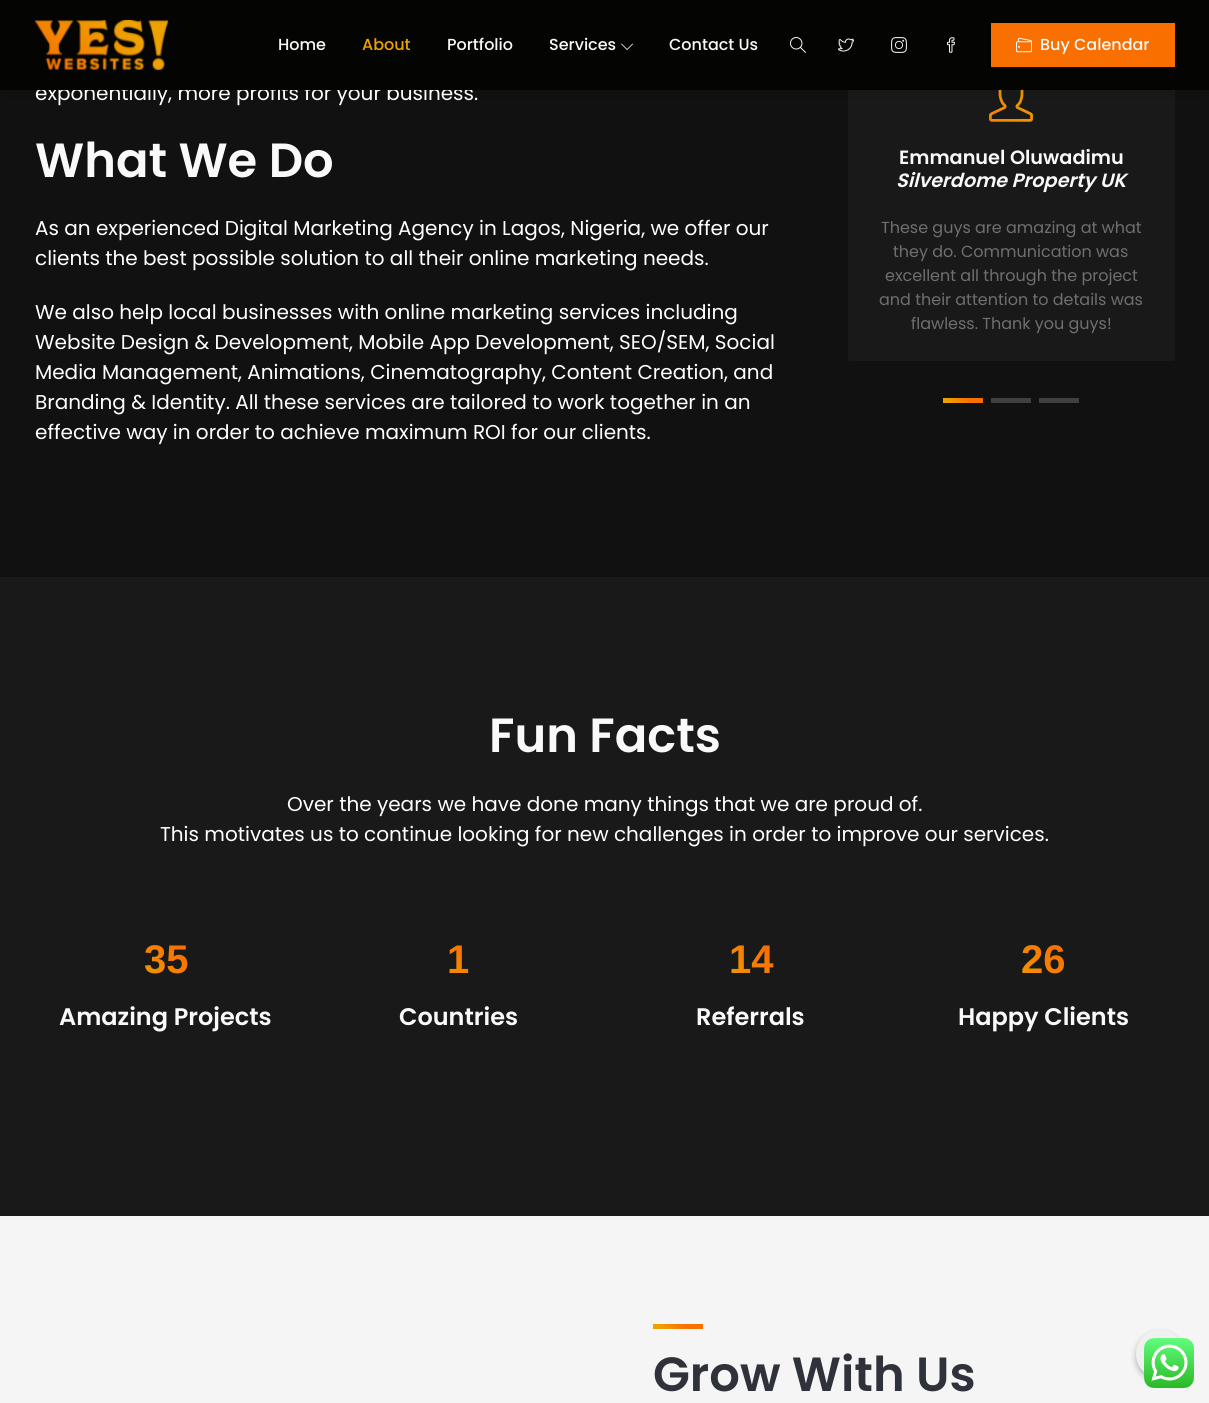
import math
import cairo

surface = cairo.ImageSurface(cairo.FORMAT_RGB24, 1209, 1403)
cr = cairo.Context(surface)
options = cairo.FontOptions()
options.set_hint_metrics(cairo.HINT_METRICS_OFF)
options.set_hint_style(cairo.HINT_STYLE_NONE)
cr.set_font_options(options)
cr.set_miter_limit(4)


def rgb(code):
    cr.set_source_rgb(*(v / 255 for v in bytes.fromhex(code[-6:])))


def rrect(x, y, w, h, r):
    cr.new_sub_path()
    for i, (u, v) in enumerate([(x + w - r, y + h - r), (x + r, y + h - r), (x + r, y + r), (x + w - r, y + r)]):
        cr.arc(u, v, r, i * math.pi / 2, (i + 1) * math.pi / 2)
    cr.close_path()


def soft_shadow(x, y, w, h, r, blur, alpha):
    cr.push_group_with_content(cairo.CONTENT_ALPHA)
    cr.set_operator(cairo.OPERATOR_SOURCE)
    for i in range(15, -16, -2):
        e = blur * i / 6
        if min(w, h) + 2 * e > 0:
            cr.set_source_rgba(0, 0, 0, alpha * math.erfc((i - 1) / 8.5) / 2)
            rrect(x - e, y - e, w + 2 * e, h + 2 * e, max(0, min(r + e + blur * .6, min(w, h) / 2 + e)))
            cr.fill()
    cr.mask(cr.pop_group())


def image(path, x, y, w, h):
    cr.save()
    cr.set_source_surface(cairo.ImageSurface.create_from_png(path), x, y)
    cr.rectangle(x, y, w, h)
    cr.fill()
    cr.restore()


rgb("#111111")
cr.paint()
rgb("#191919")
rrect(848, 53, 327, 308, 2)
cr.fill()
image("img/8.png", 989, 90, 44, 32)
rgb("#000000")
soft_shadow(0, 2, 1209, 90, 0, 14, 0.09)
gradient = cairo.LinearGradient(952, 412, 974, 389)
gradient.add_color_stop_rgba(0.15, 0.933, 0.635, 0, 1)
gradient.add_color_stop_rgba(0.65, 0.976, 0.439, 0, 1)
cr.set_source(gradient)
cr.rectangle(943, 398, 40, 5)
cr.fill()
for x, y, w, h, color in [
    (991, 398, 40, 5, "#404040"),
    (1039, 398, 40, 5, "#404040"),
    (0, 577, 1209, 639, "#191919"),
    (0, 1216, 1209, 187, "#f5f5f5"),
]:
    rgb(color)
    cr.rectangle(x, y, w, h)
    cr.fill()
rgb("#3d3d3d")
soft_shadow(1136, 1333, 48, 48, 24, 3, 0.23)
soft_shadow(1136, 1333, 48, 48, 24, 3, 0.16)
rgb("#f0f0f0")
cr.arc(1160, 1354, 24, 0, 2 * math.pi)
cr.fill()
gradient = cairo.LinearGradient(664, 1340, 692, 1313)
gradient.add_color_stop_rgba(0.15, 0.933, 0.635, 0, 1)
gradient.add_color_stop_rgba(0.65, 0.976, 0.439, 0, 1)
cr.set_source(gradient)
cr.rectangle(653, 1324, 50, 5)
cr.fill()
image("img/9.png", 1144, 1338, 50, 50)
cr.select_font_face("Poppins")
cr.set_font_size(20)
rgb("#ffffff")
cr.move_to(35, 100)
cr.show_text("exponentially, more profits for your business.")
rgb("#040402")
cr.rectangle(0, 0, 1209, 90)
cr.fill()
rgb("#f97000")
cr.rectangle(991, 23, 184, 44)
cr.fill()
cr.select_font_face("Poppins Medium")
cr.set_font_size(16)
rgb("#f9f9f9")
cr.move_to(1040, 50)
cr.show_text("Buy Calendar")
image("img/7.png", 1016, 37, 16, 16)
image("img/2.png", 621, 43, 12, 7)
cr.move_to(549, 50)
cr.show_text("Services")
image("img/6.png", 947, 37, 8, 16)
image("img/5.png", 891, 37, 16, 16)
image("img/4.png", 838, 38, 16, 14)
image("img/3.png", 790, 37, 16, 16)
cr.move_to(669, 50)
cr.show_text("Contact Us")
cr.move_to(447, 50)
cr.show_text("Portfolio")
rgb("#eea200")
cr.move_to(362, 50)
cr.show_text("About")
rgb("#f9f9f9")
cr.move_to(278, 50)
cr.show_text("Home")
image("img/1.png", 34, 20, 135, 50)
cr.select_font_face("Poppins SemiBold")
cr.set_font_size(48)
cr.move_to(35, 177)
cr.show_text("What We Do")
cr.select_font_face("Poppins")
cr.set_font_size(20)
rgb("#ffffff")
for x, y, s in [
    (35, 235, "As an experienced Digital Marketing Agency in Lagos, Nigeria, we offer our"),
    (35, 265, "clients the best possible solution to all their online marketing needs."),
    (35, 319, "We also help local businesses with online marketing services including"),
    (35, 349, "Website Design & Development, Mobile App Development, SEO/SEM, Social"),
    (35, 379, "Media Management, Animations, Cinematography, Content Creation, and"),
    (35, 409, "Branding & Identity. All these services are tailored to work together in an"),
    (35, 439, "effective way in order to achieve maximum ROI for our clients."),
]:
    cr.move_to(x, y)
    cr.show_text(s)
cr.select_font_face("Poppins SemiBold")
cr.set_font_size(19.25)
rgb("#f9f9f9")
cr.move_to(899, 164)
cr.show_text("Emmanuel Oluwadimu")
cr.select_font_face("Poppins SemiBold", cairo.FONT_SLANT_ITALIC)
cr.move_to(896, 187)
cr.show_text("Silverdome Property UK")
cr.select_font_face("Poppins")
cr.set_font_size(16)
rgb("#6f6f6f")
for x, y, s in [
    (881, 233, "These guys are amazing at what"),
    (893, 257, "they do. Communication was"),
    (885, 281, "excellent all through the project"),
    (879, 305, "and their attention to details was"),
    (911, 329, "flawless. Thank you guys!"),
]:
    cr.move_to(x, y)
    cr.show_text(s)
cr.select_font_face("Poppins SemiBold")
cr.set_font_size(48)
rgb("#f9f9f9")
cr.move_to(489, 752)
cr.show_text("Fun Facts")
cr.select_font_face("Poppins")
cr.set_font_size(20)
rgb("#ffffff")
cr.move_to(287, 811)
cr.show_text("Over the years we have done many things that we are proud of.")
cr.move_to(160, 841)
cr.show_text("This motivates us to continue looking for new challenges in order to improve our services.")
cr.select_font_face("Liberation Sans", cairo.FONT_SLANT_NORMAL, cairo.FONT_WEIGHT_BOLD)
cr.set_font_size(40)
gradient = cairo.LinearGradient(126, 999, 206, 919)
gradient.add_color_stop_rgba(0.15, 0.933, 0.635, 0, 1)
gradient.add_color_stop_rgba(0.65, 0.976, 0.439, 0, 1)
cr.set_source(gradient)
cr.move_to(144, 973)
cr.show_text("35")
cr.select_font_face("Poppins SemiBold")
cr.set_font_size(24)
rgb("#f9f9f9")
cr.move_to(59, 1025)
cr.show_text("Amazing Projects")
cr.select_font_face("Liberation Sans", cairo.FONT_SLANT_NORMAL, cairo.FONT_WEIGHT_BOLD)
cr.set_font_size(40)
gradient = cairo.LinearGradient(418, 999, 498, 919)
gradient.add_color_stop_rgba(0.15, 0.933, 0.635, 0, 1)
gradient.add_color_stop_rgba(0.65, 0.976, 0.439, 0, 1)
cr.set_source(gradient)
cr.move_to(447, 973)
cr.show_text("1")
cr.select_font_face("Poppins SemiBold")
cr.set_font_size(24)
rgb("#f9f9f9")
cr.move_to(399, 1025)
cr.show_text("Countries")
cr.select_font_face("Liberation Sans", cairo.FONT_SLANT_NORMAL, cairo.FONT_WEIGHT_BOLD)
cr.set_font_size(40)
gradient = cairo.LinearGradient(711, 999, 791, 919)
gradient.add_color_stop_rgba(0.15, 0.933, 0.635, 0, 1)
gradient.add_color_stop_rgba(0.65, 0.976, 0.439, 0, 1)
cr.set_source(gradient)
cr.move_to(729, 973)
cr.show_text("14")
cr.select_font_face("Poppins SemiBold")
cr.set_font_size(24)
rgb("#f9f9f9")
cr.move_to(696, 1025)
cr.show_text("Referrals")
cr.select_font_face("Liberation Sans", cairo.FONT_SLANT_NORMAL, cairo.FONT_WEIGHT_BOLD)
cr.set_font_size(40)
gradient = cairo.LinearGradient(1003, 999, 1083, 919)
gradient.add_color_stop_rgba(0.15, 0.933, 0.635, 0, 1)
gradient.add_color_stop_rgba(0.65, 0.976, 0.439, 0, 1)
cr.set_source(gradient)
cr.move_to(1021, 973)
cr.show_text("26")
cr.select_font_face("Poppins SemiBold")
cr.set_font_size(24)
rgb("#f9f9f9")
cr.move_to(958, 1025)
cr.show_text("Happy Clients")
cr.set_font_size(48)
rgb("#2f323a")
cr.move_to(653, 1391)
cr.show_text("Grow With Us")
surface.write_to_png("page.png")
